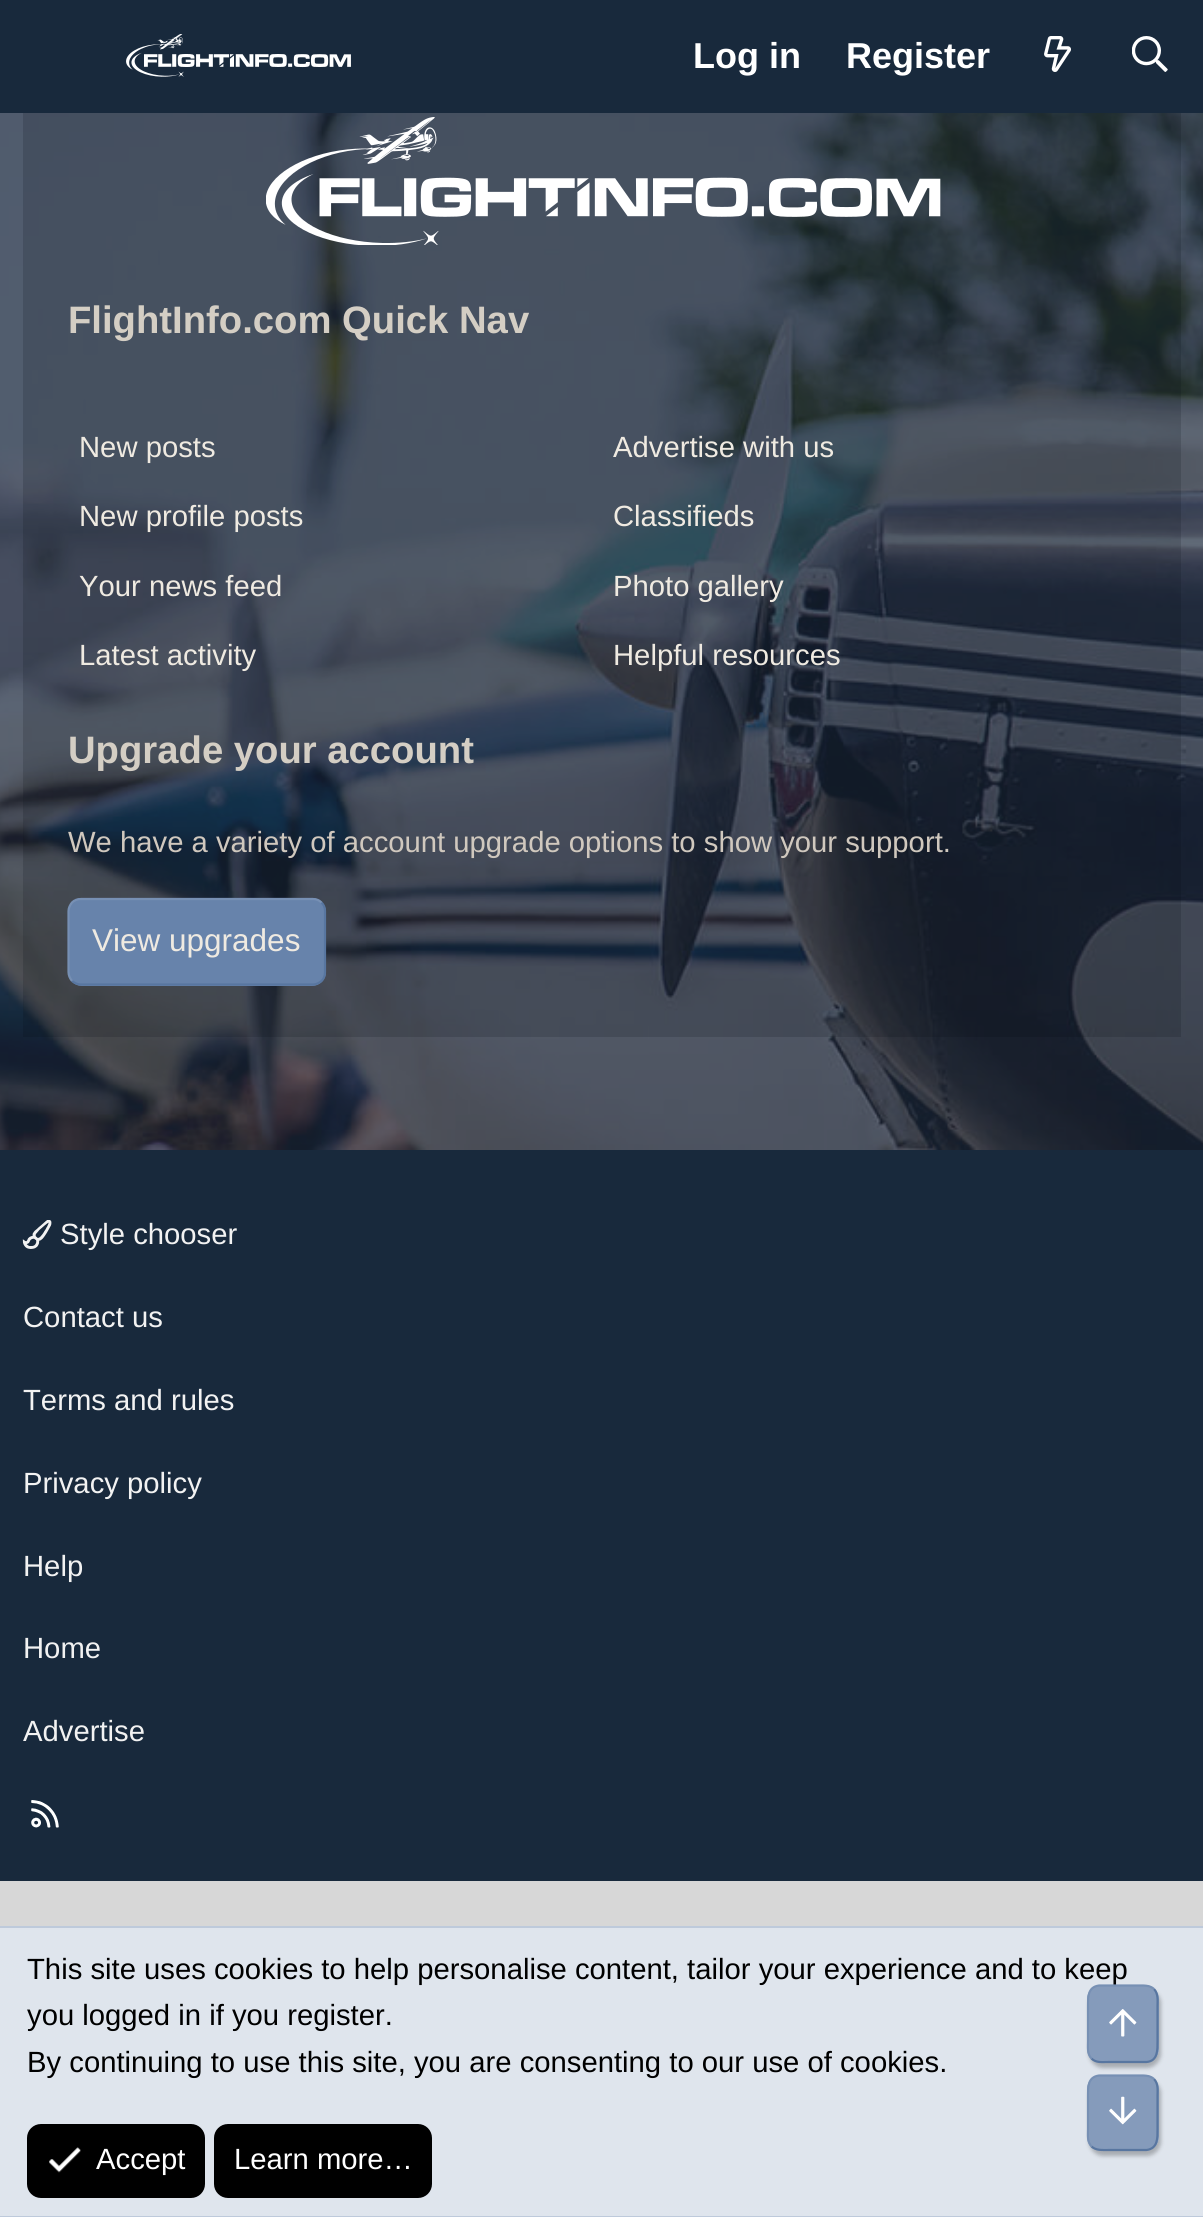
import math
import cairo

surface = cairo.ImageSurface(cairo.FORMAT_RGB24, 1203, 2217)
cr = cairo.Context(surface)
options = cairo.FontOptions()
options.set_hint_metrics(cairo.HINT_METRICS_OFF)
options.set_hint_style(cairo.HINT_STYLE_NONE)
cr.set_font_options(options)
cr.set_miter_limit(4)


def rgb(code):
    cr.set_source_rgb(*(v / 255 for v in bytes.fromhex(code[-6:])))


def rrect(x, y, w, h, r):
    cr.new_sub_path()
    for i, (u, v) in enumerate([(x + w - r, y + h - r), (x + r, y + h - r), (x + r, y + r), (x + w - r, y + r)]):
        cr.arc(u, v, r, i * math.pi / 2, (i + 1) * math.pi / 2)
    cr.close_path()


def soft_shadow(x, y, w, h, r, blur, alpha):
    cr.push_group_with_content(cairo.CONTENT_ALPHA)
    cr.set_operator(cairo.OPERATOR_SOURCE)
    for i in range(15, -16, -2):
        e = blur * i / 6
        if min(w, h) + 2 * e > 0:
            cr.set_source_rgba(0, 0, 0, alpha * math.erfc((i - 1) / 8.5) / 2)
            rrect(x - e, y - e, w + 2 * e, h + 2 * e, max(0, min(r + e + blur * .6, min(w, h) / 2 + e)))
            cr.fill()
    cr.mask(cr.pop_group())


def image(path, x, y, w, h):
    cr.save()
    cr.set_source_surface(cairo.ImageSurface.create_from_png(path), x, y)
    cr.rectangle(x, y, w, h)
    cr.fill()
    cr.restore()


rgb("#d7d7d7")
cr.paint()
rgb("#18293c")
cr.rectangle(0, 0, 1203, 113)
cr.fill()
image("img/1.png", 126, 34, 225, 43)
image("img/2.png", 1044, 36, 27, 36)
image("img/3.png", 1132, 36, 36, 36)
image("img/4.png", 0, 113, 1203, 1037)
cr.set_source_rgba(0.008, 0.039, 0.055, 0.15)
cr.rectangle(23, 113, 1158, 924)
cr.fill()
image("img/5.png", 266, 117, 675, 128)
rgb("#6783ab")
rrect(68, 898, 258, 88, 14)
cr.fill()
cr.new_path()
cr.move_to(321.5, 902.5)
cr.curve_to(324, 905, 325, 908, 325, 911)
cr.line_to(325, 972)
cr.curve_to(325, 975.5, 324, 978.5, 321.5, 981)
cr.curve_to(319, 983, 316, 984.5, 313, 984.5)
cr.line_to(81, 984.5)
cr.curve_to(77.5, 984.5, 74.5, 983, 72, 981)
rgb("#5876a0")
cr.set_line_width(2.2)
cr.stroke()
cr.new_path()
cr.move_to(72, 981)
cr.curve_to(70, 978.5, 68.5, 975.5, 68.5, 972)
cr.line_to(68.5, 911)
cr.curve_to(68.5, 908, 70, 905, 72, 902.5)
cr.curve_to(74.5, 900, 77.5, 899, 81, 899)
cr.line_to(313, 899)
cr.curve_to(316, 899, 319, 900, 321.5, 902.5)
rgb("#7790b4")
cr.stroke()
rgb("#18293c")
cr.rectangle(0, 1150, 1203, 731)
cr.fill()
image("img/6.png", 22, 1220, 30, 29)
image("img/7.png", 31, 1800, 28, 28)
for x, y, w, h, color in [
    (0, 1928, 1203, 288, "#dfe5ed"),
    (0, 1926, 1203, 2, "#becadb"),
    (0, 2216, 1203, 1, "#becadb"),
]:
    rgb(color)
    cr.rectangle(x, y, w, h)
    cr.fill()
rgb("#000000")
rrect(28, 2125, 176, 72, 13)
cr.fill_preserve()
cr.set_line_width(2)
cr.stroke()
image("img/8.png", 49, 2147, 32, 26)
rrect(215, 2125, 216, 72, 13)
cr.fill_preserve()
cr.stroke()
cr.save()
cr.set_fill_rule(cairo.FILL_RULE_EVEN_ODD)
cr.new_path()
cr.move_to(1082, 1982)
cr.line_to(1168, 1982)
cr.line_to(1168, 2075)
cr.line_to(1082, 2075)
cr.close_path()
cr.move_to(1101, 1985)
cr.line_to(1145, 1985)
cr.curve_to(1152.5, 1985, 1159, 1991.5, 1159, 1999)
cr.line_to(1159, 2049)
cr.curve_to(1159, 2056.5, 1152.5, 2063, 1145, 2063)
cr.line_to(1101, 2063)
cr.curve_to(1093.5, 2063, 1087, 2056.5, 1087, 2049)
cr.line_to(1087, 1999)
cr.curve_to(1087, 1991.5, 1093.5, 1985, 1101, 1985)
cr.close_path()
cr.clip()
rgb("#000000")
soft_shadow(1089, 1989, 72, 79, 14, 2, 0.25)
cr.restore()
cr.save()
cr.set_fill_rule(cairo.FILL_RULE_EVEN_ODD)
cr.new_path()
cr.move_to(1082, 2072)
cr.line_to(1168, 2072)
cr.line_to(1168, 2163)
cr.line_to(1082, 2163)
cr.close_path()
cr.move_to(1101, 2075)
cr.line_to(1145, 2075)
cr.curve_to(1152.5, 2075, 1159, 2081.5, 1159, 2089)
cr.line_to(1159, 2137)
cr.curve_to(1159, 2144.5, 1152.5, 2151, 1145, 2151)
cr.line_to(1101, 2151)
cr.curve_to(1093.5, 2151, 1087, 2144.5, 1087, 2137)
cr.line_to(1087, 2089)
cr.curve_to(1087, 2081.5, 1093.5, 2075, 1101, 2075)
cr.close_path()
cr.clip()
rgb("#000000")
soft_shadow(1089, 2079, 72, 77, 14, 2, 0.25)
cr.restore()
cr.set_source_rgba(0.404, 0.514, 0.671, 0.75)
rrect(1087, 2075, 72, 76, 14)
cr.fill()
cr.new_path()
cr.move_to(1154, 2079)
cr.curve_to(1158.5, 2084, 1157.5, 2090, 1157.5, 2096)
cr.line_to(1157.5, 2129)
cr.curve_to(1157.5, 2138, 1158, 2148.5, 1146.5, 2150)
cr.line_to(1108, 2150)
cr.curve_to(1102, 2150, 1096, 2150.5, 1091.5, 2146.5)
rgb("#5876a0")
cr.set_line_width(2.2)
cr.stroke()
cr.new_path()
cr.move_to(1091.5, 2146.5)
cr.curve_to(1087, 2141.5, 1088, 2135.5, 1088, 2129)
cr.line_to(1088, 2096)
cr.curve_to(1088, 2087.5, 1087.5, 2077, 1099, 2075.5)
cr.line_to(1138, 2075.5)
cr.curve_to(1143.5, 2075.5, 1149.5, 2075, 1154, 2079)
rgb("#7790b4")
cr.stroke()
image("img/10.png", 1109, 2096, 28, 29)
cr.select_font_face("Liberation Sans", cairo.FONT_SLANT_NORMAL, cairo.FONT_WEIGHT_BOLD)
cr.set_font_size(36)
rgb("#ffffff")
cr.move_to(693, 68)
cr.show_text("Log in")
cr.move_to(846, 68)
cr.show_text("Register")
cr.set_font_size(38.25)
rgb("#d4cec4")
cr.move_to(68, 333)
cr.show_text("FlightInfo.com Quick Nav")
cr.select_font_face("Liberation Sans")
cr.set_font_size(29.25)
rgb("#efeae1")
for x, y, s in [
    (79, 457, "New posts"),
    (79, 526, "New profile posts"),
    (79, 596, "Your news feed"),
    (79, 665, "Latest activity"),
    (613, 457, "Advertise with us"),
    (613, 526, "Classifieds"),
    (613, 596, "Photo gallery"),
    (613, 665, "Helpful resources"),
]:
    cr.move_to(x, y)
    cr.show_text(s)
cr.select_font_face("Liberation Sans", cairo.FONT_SLANT_NORMAL, cairo.FONT_WEIGHT_BOLD)
cr.set_font_size(38.25)
rgb("#d4cec4")
cr.move_to(68, 763)
cr.show_text("Upgrade your account")
cr.select_font_face("Liberation Sans")
cr.set_font_size(29.25)
rgb("#d0c8be")
cr.move_to(68, 852)
cr.show_text("We have a variety of account upgrade options to show your support.")
cr.set_font_size(31.5)
rgb("#efeae1")
cr.move_to(92, 951)
cr.show_text("View upgrades")
cr.set_font_size(29.25)
rgb("#f2f2f2")
for x, y, s in [
    (60, 1244, "Style chooser"),
    (23, 1327, "Contact us"),
    (23, 1410, "Terms and rules"),
    (23, 1493, "Privacy policy"),
    (23, 1576, "Help"),
    (23, 1658, "Home"),
    (23, 1741, "Advertise"),
]:
    cr.move_to(x, y)
    cr.show_text(s)
rgb("#000000")
for x, y, s in [
    (27, 1979, "This site uses cookies to help personalise content, tailor your experience and to keep"),
    (27, 2025, "you logged in if you register."),
    (27, 2072, "By continuing to use this site, you are consenting to our use of cookies."),
]:
    cr.move_to(x, y)
    cr.show_text(s)
rgb("#ffffff")
cr.move_to(96, 2169)
cr.show_text("Accept")
cr.move_to(234, 2169)
cr.show_text("Learn more…")
cr.set_source_rgba(0.404, 0.514, 0.671, 0.75)
rrect(1087, 1985, 72, 78, 14)
cr.fill()
cr.new_path()
cr.move_to(1154, 1989)
cr.curve_to(1158.5, 1994, 1157.5, 2000.5, 1157.5, 2006.5)
cr.line_to(1157.5, 2041)
cr.curve_to(1157.5, 2050, 1158, 2061, 1146.5, 2062)
cr.line_to(1108, 2062)
cr.curve_to(1102, 2062, 1096, 2063, 1091.5, 2058.5)
rgb("#5876a0")
cr.stroke()
cr.new_path()
cr.move_to(1091.5, 2058.5)
cr.curve_to(1087, 2054, 1088, 2047, 1088, 2041)
cr.line_to(1088, 2006.5)
cr.curve_to(1088, 1997.5, 1087.5, 1987, 1099, 1985.5)
cr.line_to(1138, 1985.5)
cr.curve_to(1143.5, 1985.5, 1149.5, 1985, 1154, 1989)
rgb("#7790b4")
cr.stroke()
image("img/9.png", 1109, 2009, 28, 28)
surface.write_to_png("page.png")
